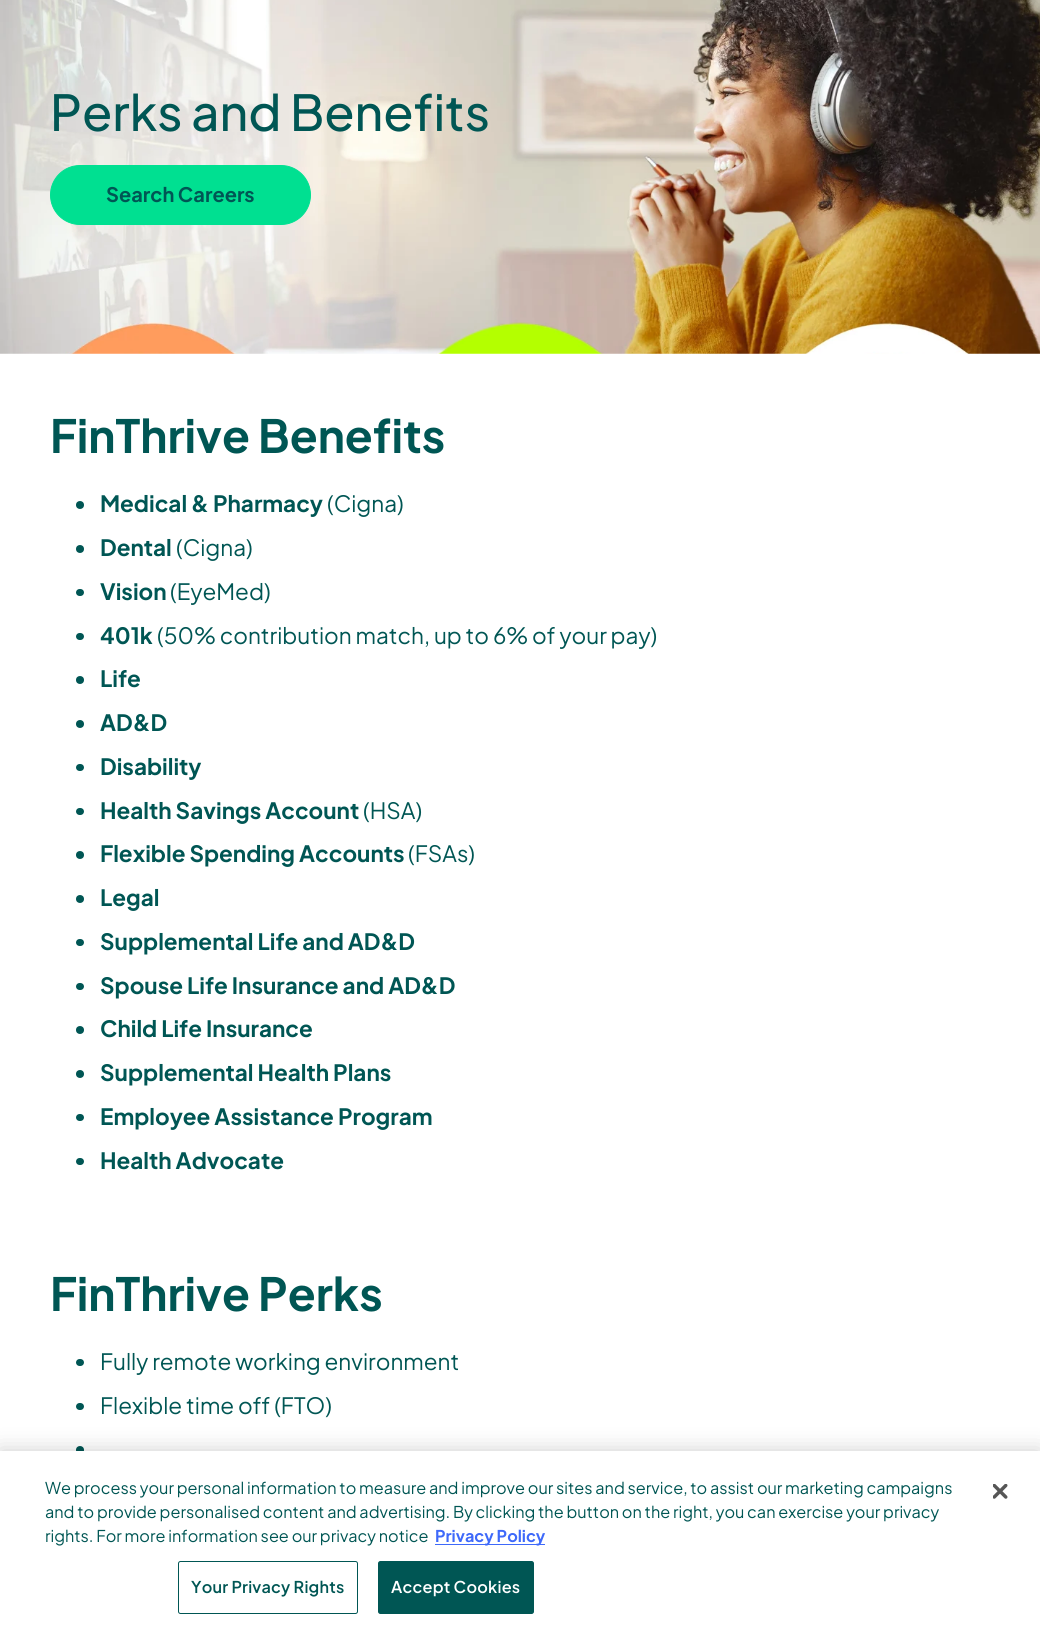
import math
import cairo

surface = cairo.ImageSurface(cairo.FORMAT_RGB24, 1040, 1633)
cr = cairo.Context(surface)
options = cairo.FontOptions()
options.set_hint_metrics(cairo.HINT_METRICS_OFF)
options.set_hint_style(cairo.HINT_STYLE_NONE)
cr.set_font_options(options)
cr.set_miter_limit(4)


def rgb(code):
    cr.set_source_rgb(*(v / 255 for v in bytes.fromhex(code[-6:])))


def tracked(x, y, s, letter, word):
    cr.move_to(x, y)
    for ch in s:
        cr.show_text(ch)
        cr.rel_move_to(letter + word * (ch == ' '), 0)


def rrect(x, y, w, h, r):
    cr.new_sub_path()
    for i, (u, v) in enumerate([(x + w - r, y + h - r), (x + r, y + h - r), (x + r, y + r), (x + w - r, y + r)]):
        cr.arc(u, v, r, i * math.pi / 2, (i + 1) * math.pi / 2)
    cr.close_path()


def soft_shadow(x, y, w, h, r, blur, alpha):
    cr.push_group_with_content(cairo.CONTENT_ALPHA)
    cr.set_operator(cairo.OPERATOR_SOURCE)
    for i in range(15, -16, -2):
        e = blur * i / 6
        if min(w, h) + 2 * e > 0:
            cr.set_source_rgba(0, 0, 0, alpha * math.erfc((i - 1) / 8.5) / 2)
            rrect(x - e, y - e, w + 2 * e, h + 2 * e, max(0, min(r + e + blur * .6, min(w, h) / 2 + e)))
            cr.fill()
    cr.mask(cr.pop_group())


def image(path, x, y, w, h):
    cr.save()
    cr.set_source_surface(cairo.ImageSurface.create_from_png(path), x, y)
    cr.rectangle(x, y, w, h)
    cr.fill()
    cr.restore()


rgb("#ffffff")
cr.paint()
image("img/1.png", 0, 0, 1040, 354)
rgb("#00e091")
rrect(50.5, 165.5, 260, 59, 29.5)
cr.fill_preserve()
cr.set_line_width(1)
cr.stroke()
rgb("#005654")
cr.arc(80, 505, 4, 0, 2 * math.pi)
cr.fill()
cr.arc(80, 549, 4, 0, 2 * math.pi)
cr.fill()
rrect(76, 589, 8, 7, 3.5)
cr.fill()
rrect(76, 633, 8, 7, 3.5)
cr.fill()
cr.arc(80, 680, 4, 0, 2 * math.pi)
cr.fill()
cr.arc(80, 724, 4, 0, 2 * math.pi)
cr.fill()
rrect(76, 764, 8, 7, 3.5)
cr.fill()
rrect(76, 808, 8, 7, 3.5)
cr.fill()
cr.arc(80, 855, 4, 0, 2 * math.pi)
cr.fill()
cr.arc(80, 899, 4, 0, 2 * math.pi)
cr.fill()
rrect(76, 939, 8, 7, 3.5)
cr.fill()
rrect(76, 983, 8, 7, 3.5)
cr.fill()
cr.arc(80, 1030, 4, 0, 2 * math.pi)
cr.fill()
cr.arc(80, 1074, 4, 0, 2 * math.pi)
cr.fill()
rrect(76, 1114, 8, 7, 3.5)
cr.fill()
rrect(76, 1158, 8, 7, 3.5)
cr.fill()
rrect(76, 1359, 8, 7, 3.5)
cr.fill()
rrect(76, 1403, 8, 7, 3.5)
cr.fill()
cr.arc(80, 1450, 4, 0, 2 * math.pi)
cr.fill()
rgb("#000000")
soft_shadow(0, 1451, 1040, 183, 0, 11, 0.2)
rgb("#ffffff")
cr.rectangle(0, 1451, 1040, 182)
cr.fill()
rgb("#3e69fa")
cr.rectangle(435, 1544, 110, 1)
cr.fill()
rrect(178.5, 1561.5, 179, 52, 2)
rgb("#005654")
cr.stroke()
rrect(378.5, 1561.5, 155, 52, 2)
cr.fill_preserve()
cr.stroke()
image("img/2.png", 993, 1484, 15, 15)
cr.select_font_face("Plus Jakarta Sans Medium")
cr.set_font_size(49.5)
cr.move_to(50, 131)
cr.show_text("Perks and Benefits")
cr.select_font_face("Plus Jakarta Sans", cairo.FONT_SLANT_NORMAL, cairo.FONT_WEIGHT_BOLD)
cr.set_font_size(20)
cr.move_to(106, 202)
cr.show_text("Search Careers")
cr.set_font_size(45.75)
cr.move_to(50, 453)
cr.show_text("FinThrive Benefits")
cr.set_font_size(22.5)
cr.move_to(100, 512)
cr.show_text("Medical & Pharmacy")
cr.select_font_face("Plus Jakarta Sans")
cr.move_to(327, 512)
cr.show_text("(Cigna)")
cr.select_font_face("Plus Jakarta Sans", cairo.FONT_SLANT_NORMAL, cairo.FONT_WEIGHT_BOLD)
cr.move_to(100, 556)
cr.show_text("Dental")
cr.select_font_face("Plus Jakarta Sans")
cr.move_to(176, 556)
cr.show_text("(Cigna)")
cr.select_font_face("Plus Jakarta Sans", cairo.FONT_SLANT_NORMAL, cairo.FONT_WEIGHT_BOLD)
cr.move_to(100, 600)
cr.show_text("Vision")
cr.select_font_face("Plus Jakarta Sans")
cr.move_to(170, 600)
cr.show_text("(EyeMed)")
cr.select_font_face("Plus Jakarta Sans", cairo.FONT_SLANT_NORMAL, cairo.FONT_WEIGHT_BOLD)
cr.move_to(100, 644)
cr.show_text("401k")
cr.select_font_face("Plus Jakarta Sans")
cr.move_to(157, 644)
cr.show_text("(50% contribution match, up to 6% of your pay)")
cr.select_font_face("Plus Jakarta Sans", cairo.FONT_SLANT_NORMAL, cairo.FONT_WEIGHT_BOLD)
for x, y, s in [
    (100, 687, "Life"),
    (100, 731, "AD&D"),
    (100, 775, "Disability"),
    (100, 819, "Health Savings Account"),
]:
    cr.move_to(x, y)
    cr.show_text(s)
cr.select_font_face("Plus Jakarta Sans")
cr.move_to(363, 819)
cr.show_text("(HSA)")
cr.select_font_face("Plus Jakarta Sans", cairo.FONT_SLANT_NORMAL, cairo.FONT_WEIGHT_BOLD)
cr.move_to(100, 862)
cr.show_text("Flexible Spending Accounts")
cr.select_font_face("Plus Jakarta Sans")
cr.move_to(408, 862)
cr.show_text("(FSAs)")
cr.select_font_face("Plus Jakarta Sans", cairo.FONT_SLANT_NORMAL, cairo.FONT_WEIGHT_BOLD)
for x, y, s in [
    (100, 906, "Legal"),
    (100, 950, "Supplemental Life and AD&D"),
    (100, 994, "Spouse Life Insurance and AD&D"),
    (100, 1037, "Child Life Insurance"),
    (100, 1081, "Supplemental Health Plans"),
    (100, 1125, "Employee Assistance Program"),
    (100, 1169, "Health Advocate"),
]:
    cr.move_to(x, y)
    cr.show_text(s)
cr.set_font_size(45.75)
cr.move_to(50, 1311)
cr.show_text("FinThrive Perks")
cr.select_font_face("Plus Jakarta Sans")
cr.set_font_size(22.5)
cr.move_to(100, 1370)
cr.show_text("Fully remote working environment")
cr.move_to(100, 1414)
cr.show_text("Flexible time off (FTO)")
cr.set_font_size(16.25)
for x, y, s in [
    (45, 1494, "We process your personal information to measure and improve our sites and service, to assist our marketing campaigns"),
    (45, 1518, "and to provide personalised content and advertising. By clicking the button on the right, you can exercise your privacy"),
    (45, 1542, "rights. For more information see our privacy notice"),
]:
    cr.move_to(x, y)
    cr.show_text(s)
cr.select_font_face("Plus Jakarta Sans", cairo.FONT_SLANT_NORMAL, cairo.FONT_WEIGHT_BOLD)
rgb("#3e69fa")
cr.move_to(435, 1542)
cr.show_text("Privacy Policy")
cr.select_font_face("Plus Jakarta Sans SemiBold")
rgb("#005654")
tracked(191, 1593, "Your Privacy Rights", 0.2, 0)
rgb("#ffffff")
tracked(391, 1593, "Accept Cookies", 0.2, 0)
surface.write_to_png("page.png")
